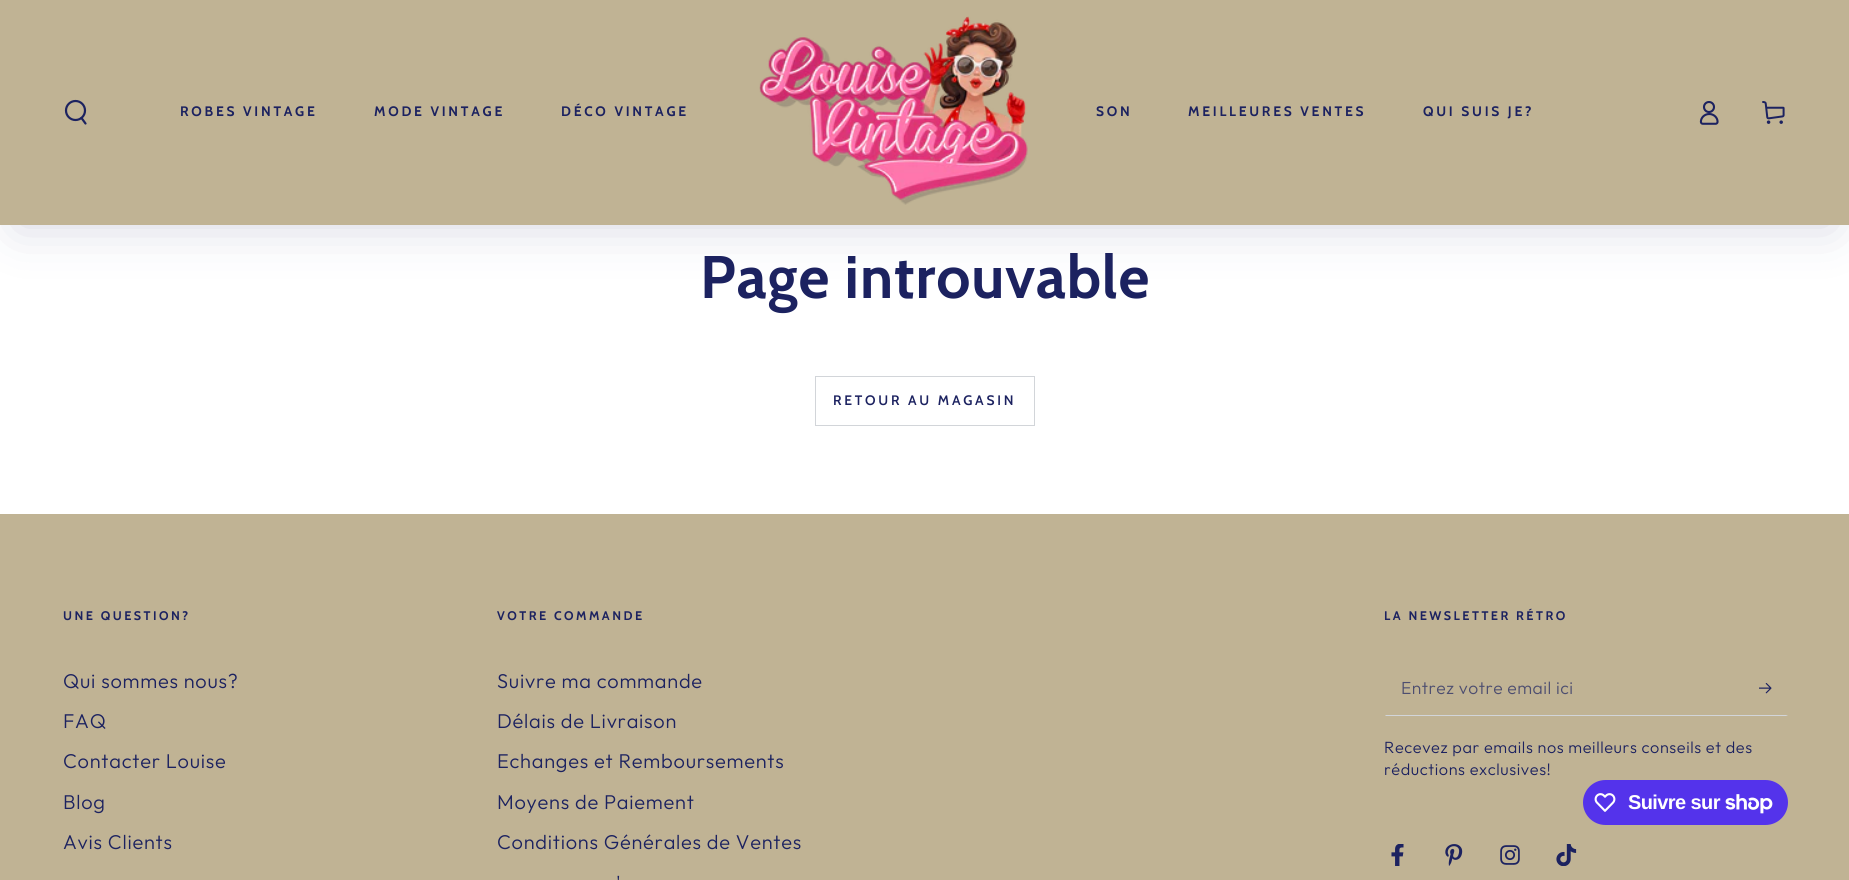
import math
import cairo

surface = cairo.ImageSurface(cairo.FORMAT_RGB24, 1849, 880)
cr = cairo.Context(surface)
options = cairo.FontOptions()
options.set_hint_metrics(cairo.HINT_METRICS_OFF)
options.set_hint_style(cairo.HINT_STYLE_NONE)
cr.set_font_options(options)
cr.set_miter_limit(4)


def rgb(code):
    cr.set_source_rgb(*(v / 255 for v in bytes.fromhex(code[-6:])))


def tracked(x, y, s, letter, word):
    cr.move_to(x, y)
    for ch in s:
        cr.show_text(ch)
        cr.rel_move_to(letter + word * (ch == ' '), 0)


def rrect(x, y, w, h, r):
    cr.new_sub_path()
    for i, (u, v) in enumerate([(x + w - r, y + h - r), (x + r, y + h - r), (x + r, y + r), (x + w - r, y + r)]):
        cr.arc(u, v, r, i * math.pi / 2, (i + 1) * math.pi / 2)
    cr.close_path()


def soft_shadow(x, y, w, h, r, blur, alpha):
    cr.push_group_with_content(cairo.CONTENT_ALPHA)
    cr.set_operator(cairo.OPERATOR_SOURCE)
    for i in range(15, -16, -2):
        e = blur * i / 6
        if min(w, h) + 2 * e > 0:
            cr.set_source_rgba(0, 0, 0, alpha * math.erfc((i - 1) / 8.5) / 2)
            rrect(x - e, y - e, w + 2 * e, h + 2 * e, max(0, min(r + e + blur * .6, min(w, h) / 2 + e)))
            cr.fill()
    cr.mask(cr.pop_group())


def image(path, x, y, w, h):
    cr.save()
    cr.set_source_surface(cairo.ImageSurface.create_from_png(path), x, y)
    cr.rectangle(x, y, w, h)
    cr.fill()
    cr.restore()


rgb("#ffffff")
cr.paint()
rgb("#1c2260")
soft_shadow(19, 200, 1812, 25, 12.5, 25, 0.2)
rgb("#c0b394")
cr.rectangle(0, 0, 1849, 225)
cr.fill()
cr.arc(75.5, 110.5, 9.5, 0, 2 * math.pi)
rgb("#1c2260")
cr.set_line_width(2.2)
cr.stroke()
cr.new_path()
cr.move_to(81.5, 118)
cr.line_to(85.5, 123.5)
cr.set_line_cap(cairo.LINE_CAP_ROUND)
cr.stroke()
image("img/1.png", 759, 16, 269, 189)
image("img/2.png", 1699, 101, 20, 24)
image("img/3.png", 1762, 101, 23, 23)
cr.rectangle(815.5, 376.5, 219, 49)
rgb("#d2d5d9")
cr.set_line_width(1)
cr.set_line_cap(cairo.LINE_CAP_BUTT)
cr.stroke()
rgb("#c0b394")
cr.rectangle(0, 514, 1849, 366)
cr.fill()
rgb("#d2d5d9")
cr.new_path()
cr.move_to(1788, 716)
cr.line_to(1385, 716)
cr.line_to(1386, 715)
cr.line_to(1786, 715)
cr.close_path()
cr.fill()
image("img/4.png", 1759, 683, 13, 11)
rgb("#5433eb")
rrect(1583, 780, 205, 45, 22.5)
cr.fill()
image("img/5.png", 1594, 793, 22, 19)
image("img/6.png", 1725, 794, 48, 20)
image("img/7.png", 1391, 844, 13, 22)
image("img/8.png", 1445, 844, 18, 22)
image("img/9.png", 1500, 845, 20, 20)
image("img/10.png", 1556, 844, 21, 22)
cr.select_font_face("Cabin", cairo.FONT_SLANT_NORMAL, cairo.FONT_WEIGHT_BOLD)
cr.set_font_size(13.75)
rgb("#1c2260")
for x, y, s in [
    (180, 116, "ROBES VINTAGE"),
    (374, 116, "MODE VINTAGE"),
    (561, 116, "DÉCO VINTAGE"),
    (1096, 116, "SON"),
    (1188, 116, "MEILLEURES VENTES"),
    (1423, 116, "QUI SUIS JE?"),
]:
    tracked(x, y, s, 2.75, 0)
cr.set_font_size(60)
tracked(700, 298, "Page introuvable", 0.9, 0)
cr.select_font_face("Cabin SemiBold")
cr.set_font_size(13.75)
tracked(833, 405, "RETOUR AU MAGASIN", 2.75, 0)
cr.select_font_face("Cabin", cairo.FONT_SLANT_NORMAL, cairo.FONT_WEIGHT_BOLD)
cr.set_font_size(12.5)
tracked(63, 620, "UNE QUESTION?", 2.5, 0)
cr.select_font_face("Outfit Light")
cr.set_font_size(20)
for x, y, s in [
    (63, 688, "Qui sommes nous?"),
    (63, 728, "FAQ"),
    (63, 768, "Contacter Louise"),
    (63, 809, "Blog"),
    (63, 849, "Avis Clients"),
]:
    tracked(x, y, s, 0.75, 0)
cr.select_font_face("Cabin", cairo.FONT_SLANT_NORMAL, cairo.FONT_WEIGHT_BOLD)
cr.set_font_size(12.5)
tracked(497, 620, "VOTRE COMMANDE", 2.5, 0)
cr.select_font_face("Outfit Light")
cr.set_font_size(20)
for x, y, s in [
    (497, 688, "Suivre ma commande"),
    (497, 728, "Délais de Livraison"),
    (497, 768, "Echanges et Remboursements"),
    (497, 809, "Moyens de Paiement"),
    (497, 849, "Conditions Générales de Ventes"),
    (616, 890, "'"),
]:
    tracked(x, y, s, 0.75, 0)
cr.select_font_face("Cabin", cairo.FONT_SLANT_NORMAL, cairo.FONT_WEIGHT_BOLD)
cr.set_font_size(12.5)
tracked(1384, 620, "LA NEWSLETTER RÉTRO", 2.5, 0)
cr.select_font_face("Outfit Light")
cr.set_font_size(17.5)
rgb("#4d4e70")
tracked(1401, 694, "Entrez votre email ici", 0.5, 0)
cr.set_font_size(16.25)
rgb("#1c2260")
tracked(1384, 753, "Recevez par emails nos meilleurs conseils et des", 0.6, 0)
tracked(1384, 775, "réductions exclusives!", 0.6, 0)
cr.select_font_face("Liberation Sans", cairo.FONT_SLANT_NORMAL, cairo.FONT_WEIGHT_BOLD)
cr.set_font_size(20)
rgb("#ffffff")
tracked(1628, 809, "Suivre sur", -0.6, 0)
surface.write_to_png("page.png")
